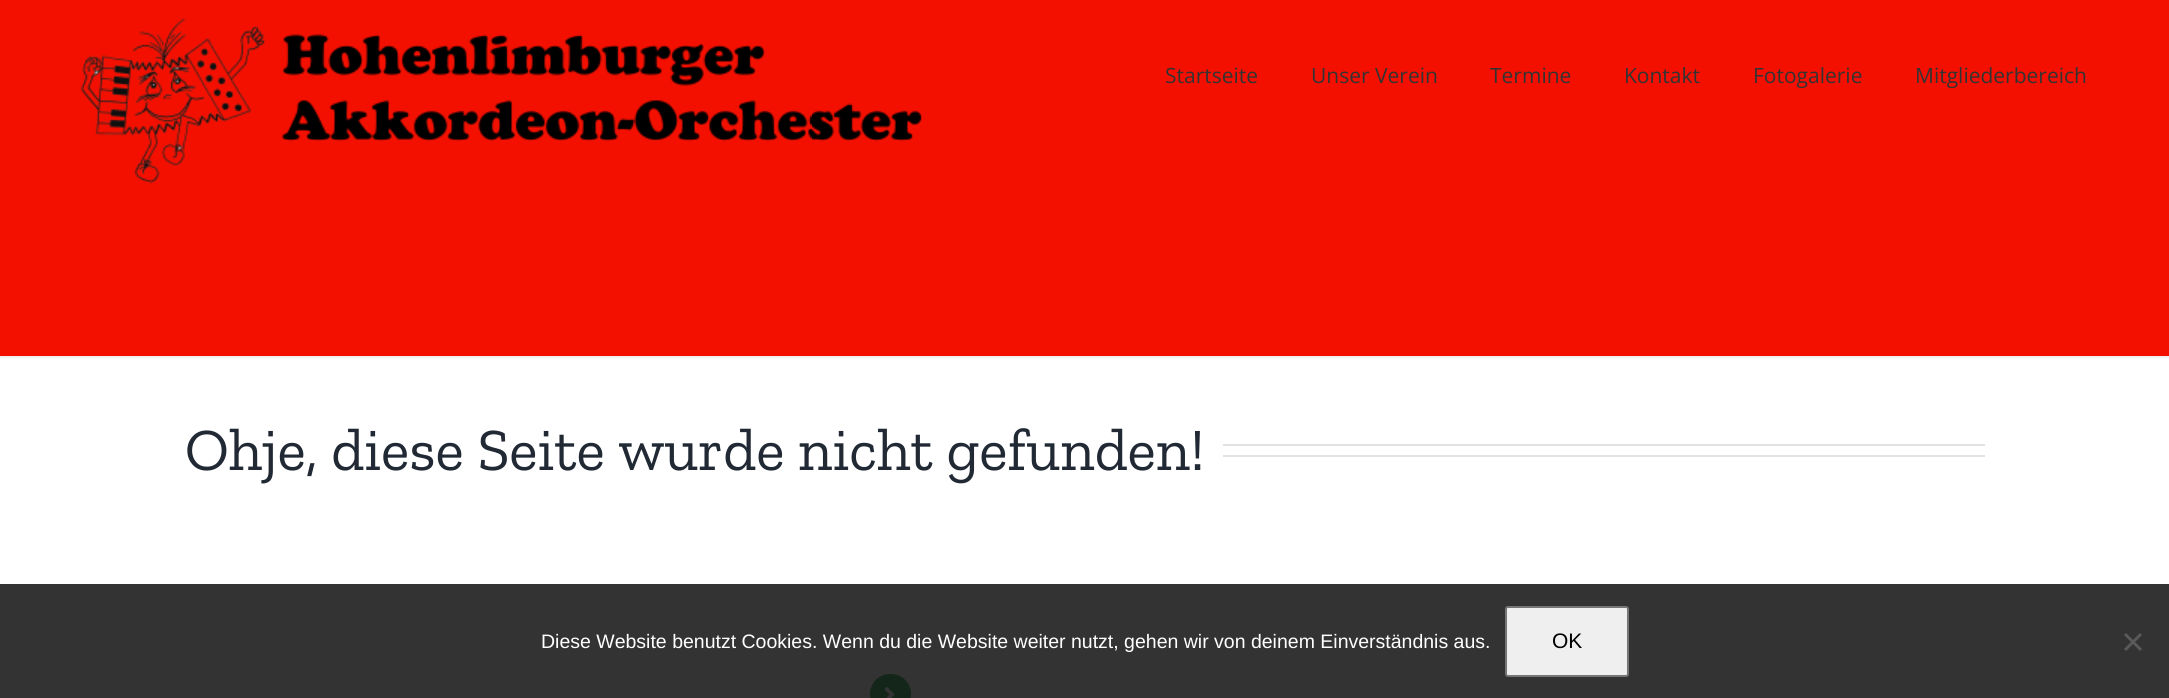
import math
import cairo

surface = cairo.ImageSurface(cairo.FORMAT_RGB24, 2169, 698)
cr = cairo.Context(surface)
options = cairo.FontOptions()
options.set_hint_metrics(cairo.HINT_METRICS_OFF)
options.set_hint_style(cairo.HINT_STYLE_NONE)
cr.set_font_options(options)
cr.set_miter_limit(4)


def rgb(code):
    cr.set_source_rgb(*(v / 255 for v in bytes.fromhex(code[-6:])))


def rrect(x, y, w, h, r):
    cr.new_sub_path()
    for i, (u, v) in enumerate([(x + w - r, y + h - r), (x + r, y + h - r), (x + r, y + r), (x + w - r, y + r)]):
        cr.arc(u, v, r, i * math.pi / 2, (i + 1) * math.pi / 2)
    cr.close_path()


def soft_shadow(x, y, w, h, r, blur, alpha):
    cr.push_group_with_content(cairo.CONTENT_ALPHA)
    cr.set_operator(cairo.OPERATOR_SOURCE)
    for i in range(15, -16, -2):
        e = blur * i / 6
        if min(w, h) + 2 * e > 0:
            cr.set_source_rgba(0, 0, 0, alpha * math.erfc((i - 1) / 8.5) / 2)
            rrect(x - e, y - e, w + 2 * e, h + 2 * e, max(0, min(r + e + blur * .6, min(w, h) / 2 + e)))
            cr.fill()
    cr.mask(cr.pop_group())


def image(path, x, y, w, h):
    cr.save()
    cr.set_source_surface(cairo.ImageSurface.create_from_png(path), x, y)
    cr.rectangle(x, y, w, h)
    cr.fill()
    cr.restore()


rgb("#ffffff")
cr.paint()
rgb("#000000")
soft_shadow(0, 2, 2169, 355, 0, 2, 0.12)
rgb("#f41000")
cr.rectangle(0, 0, 2169, 356)
cr.fill()
image("img/1.png", 80, 17, 842, 167)
rgb("#e2e2e2")
cr.rectangle(1223, 444, 762, 2)
cr.fill()
cr.rectangle(1223, 455, 762, 2)
cr.fill()
rgb("#65bc7b")
rrect(870, 674, 41, 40, 20)
cr.fill()
image("img/2.png", 884, 687, 11, 11)
cr.set_source_rgba(0, 0, 0, 0.8)
cr.rectangle(0, 584, 2169, 114)
cr.fill()
rgb("#efefef")
rrect(1506, 607, 122, 69, 2)
cr.fill_preserve()
rgb("#767676")
cr.stroke()
rgb("#5a5a5a")
cr.new_path()
cr.move_to(2140, 633)
cr.line_to(2142, 635)
cr.line_to(2126, 651)
cr.line_to(2124, 649)
cr.close_path()
cr.fill()
cr.new_path()
cr.move_to(2124, 635)
cr.line_to(2126, 633)
cr.line_to(2142, 649)
cr.line_to(2140, 651)
cr.close_path()
cr.fill()
cr.select_font_face("Open Sans")
cr.set_font_size(21)
rgb("#333333")
for x, y, s in [
    (1165, 83, "Startseite"),
    (1311, 83, "Unser Verein"),
    (1490, 83, "Termine"),
    (1624, 83, "Kontakt"),
    (1753, 83, "Fotogalerie"),
    (1915, 83, "Mitgliederbereich"),
]:
    cr.move_to(x, y)
    cr.show_text(s)
cr.select_font_face("Zilla Slab")
cr.set_font_size(60)
rgb("#212934")
cr.move_to(185, 470)
cr.show_text("Ohje, diese Seite wurde nicht gefunden!")
cr.select_font_face("Liberation Sans")
cr.set_font_size(19.5)
rgb("#ffffff")
cr.move_to(541, 648)
cr.show_text("Diese Website benutzt Cookies. Wenn du die Website weiter nutzt, gehen wir von deinem Einverständnis aus.")
cr.set_font_size(21)
rgb("#000000")
cr.move_to(1552, 648)
cr.show_text("OK")
surface.write_to_png("page.png")
